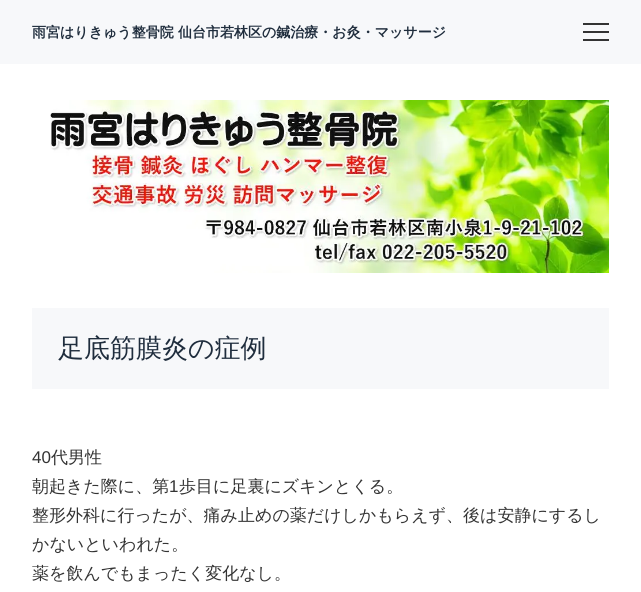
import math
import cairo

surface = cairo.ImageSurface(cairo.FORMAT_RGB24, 641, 592)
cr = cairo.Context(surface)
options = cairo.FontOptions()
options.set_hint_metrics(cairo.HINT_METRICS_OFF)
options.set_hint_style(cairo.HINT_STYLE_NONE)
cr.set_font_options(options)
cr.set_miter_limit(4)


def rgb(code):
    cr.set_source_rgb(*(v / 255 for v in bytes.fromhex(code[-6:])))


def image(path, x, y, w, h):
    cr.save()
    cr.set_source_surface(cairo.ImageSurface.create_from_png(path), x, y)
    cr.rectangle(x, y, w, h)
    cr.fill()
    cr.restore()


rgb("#ffffff")
cr.paint()
for x, y, w, h, color in [
    (0, 0, 641, 64, "#f7f8fa"),
    (583, 23, 26, 2, "#333333"),
    (583, 31, 26, 2, "#333333"),
    (583, 39, 26, 2, "#333333"),
]:
    rgb(color)
    cr.rectangle(x, y, w, h)
    cr.fill()
image("img/1.png", 50, 100, 559, 173)
rgb("#f7f8fa")
cr.rectangle(32, 308, 577, 81)
cr.fill()
cr.select_font_face("WenQuanYi Zen Hei", cairo.FONT_SLANT_NORMAL, cairo.FONT_WEIGHT_BOLD)
cr.set_font_size(14)
rgb("#1f2d3d")
cr.move_to(32, 37)
cr.show_text("雨宮はりきゅう整骨院")
cr.move_to(178, 37)
cr.show_text("仙台市若林区の鍼治療・お灸・マッサージ")
cr.select_font_face("WenQuanYi Zen Hei Medium")
cr.set_font_size(26)
cr.move_to(58, 357)
cr.show_text("足底筋膜炎の症例")
cr.select_font_face("Liberation Sans")
cr.set_font_size(17)
rgb("#333333")
cr.move_to(32, 463)
cr.show_text("40")
cr.select_font_face("WenQuanYi Zen Hei Medium")
cr.move_to(51, 463)
cr.show_text("代男性")
cr.move_to(32, 492)
cr.show_text("朝起きた際に、第")
cr.select_font_face("Liberation Sans")
cr.move_to(169, 492)
cr.show_text("1")
cr.select_font_face("WenQuanYi Zen Hei Medium")
for x, y, s in [
    (179, 492, "歩目に足裏にズキンとくる。"),
    (32, 521, "整形外科に行ったが、痛み止めの薬だけしかもらえず、後は安静にするし"),
    (32, 550, "かないといわれた。"),
    (32, 579, "薬を飲んでもまったく変化なし。"),
]:
    cr.move_to(x, y)
    cr.show_text(s)
surface.write_to_png("page.png")
